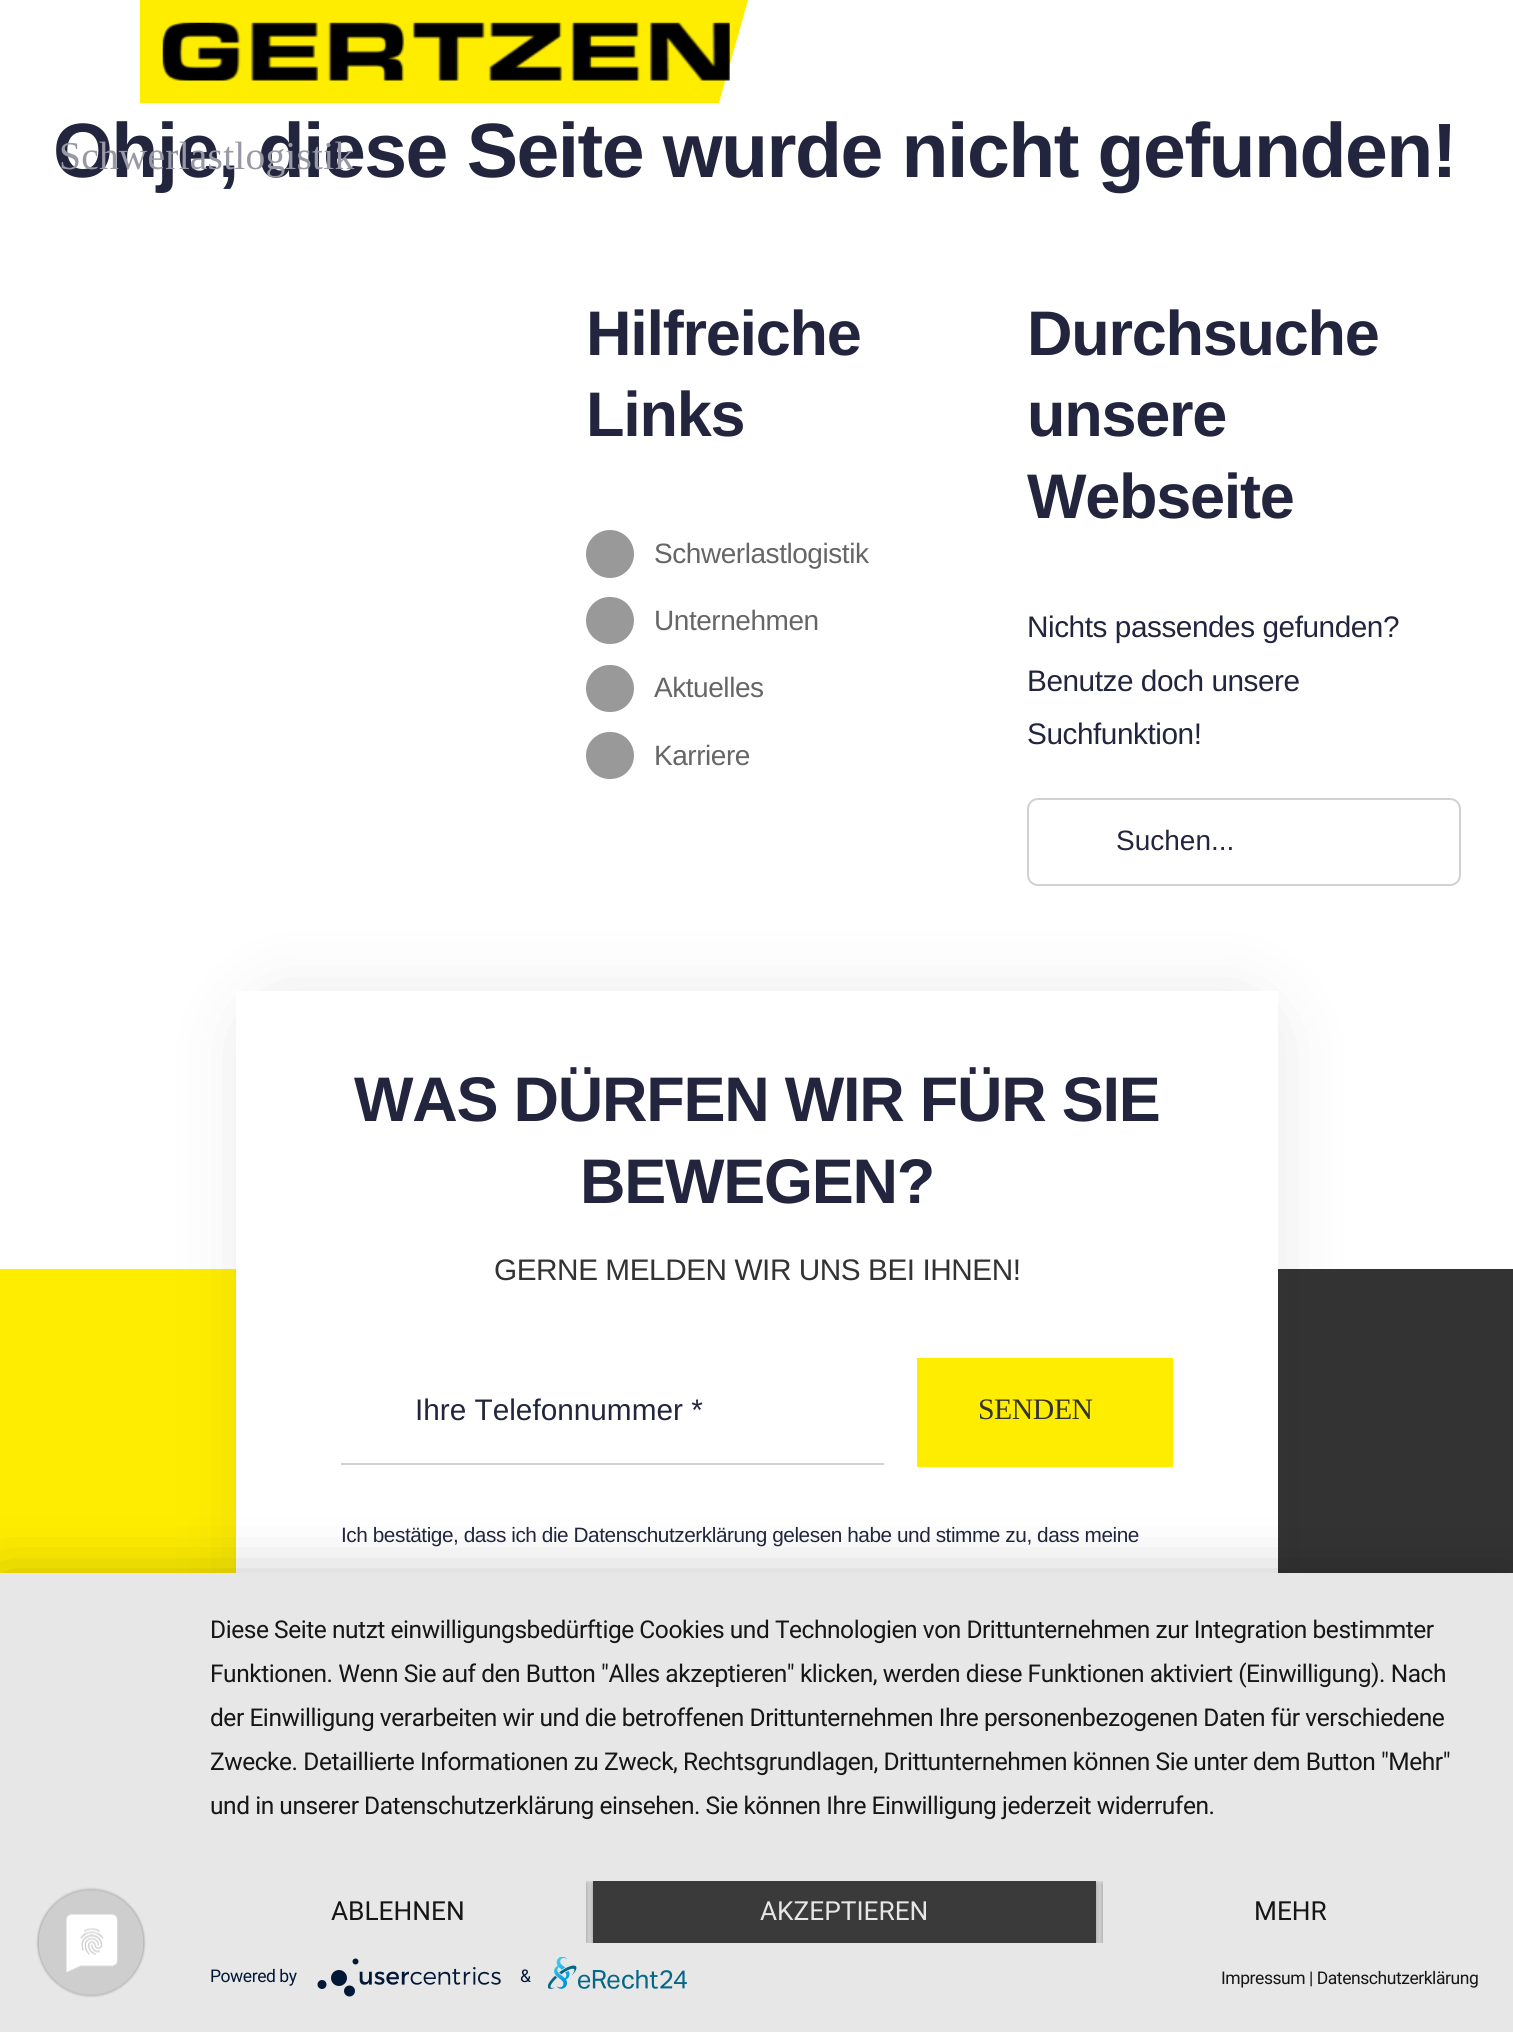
import math
import cairo

surface = cairo.ImageSurface(cairo.FORMAT_RGB24, 1513, 2032)
cr = cairo.Context(surface)
options = cairo.FontOptions()
options.set_hint_metrics(cairo.HINT_METRICS_OFF)
options.set_hint_style(cairo.HINT_STYLE_NONE)
cr.set_font_options(options)
cr.set_miter_limit(4)


def rgb(code):
    cr.set_source_rgb(*(v / 255 for v in bytes.fromhex(code[-6:])))


def tracked(x, y, s, letter, word):
    cr.move_to(x, y)
    for ch in s:
        cr.show_text(ch)
        cr.rel_move_to(letter + word * (ch == ' '), 0)


def rrect(x, y, w, h, r):
    cr.new_sub_path()
    for i, (u, v) in enumerate([(x + w - r, y + h - r), (x + r, y + h - r), (x + r, y + r), (x + w - r, y + r)]):
        cr.arc(u, v, r, i * math.pi / 2, (i + 1) * math.pi / 2)
    cr.close_path()


def soft_shadow(x, y, w, h, r, blur, alpha):
    cr.push_group_with_content(cairo.CONTENT_ALPHA)
    cr.set_operator(cairo.OPERATOR_SOURCE)
    for i in range(15, -16, -2):
        e = blur * i / 6
        if min(w, h) + 2 * e > 0:
            cr.set_source_rgba(0, 0, 0, alpha * math.erfc((i - 1) / 8.5) / 2)
            rrect(x - e, y - e, w + 2 * e, h + 2 * e, max(0, min(r + e + blur * .6, min(w, h) / 2 + e)))
            cr.fill()
    cr.mask(cr.pop_group())


def image(path, x, y, w, h):
    cr.save()
    cr.set_source_surface(cairo.ImageSurface.create_from_png(path), x, y)
    cr.rectangle(x, y, w, h)
    cr.fill()
    cr.restore()


rgb("#ffffff")
cr.paint()
rgb("#999999")
cr.arc(610, 554, 24, 0, 2 * math.pi)
cr.fill()
rrect(586, 597, 48, 47, 23.5)
cr.fill()
rrect(586, 665, 48, 47, 23.5)
cr.fill()
rrect(586, 732, 48, 47, 23.5)
cr.fill()
rrect(1028, 799, 432, 86, 10)
rgb("#d1d1d1")
cr.stroke()
cr.save()
cr.rectangle(140, 0, 613, 103)
cr.clip()
rgb("#ffed00")
cr.new_path()
cr.move_to(140, 117)
cr.line_to(715, 117)
cr.line_to(752, -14)
cr.line_to(140, -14)
cr.close_path()
cr.fill()
cr.restore()
image("img/1.png", 162, 22, 568, 59)
rgb("#ffed00")
cr.rectangle(0, 1269, 236, 304)
cr.fill()
rgb("#333333")
cr.new_path()
cr.move_to(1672, 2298)
cr.line_to(367, 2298)
cr.line_to(590, 1269)
cr.line_to(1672, 1269)
cr.close_path()
cr.fill()
rgb("#23263e")
soft_shadow(240, 994, 1041, 676, 44, 35, 0.1)
for x, y, w, h, color in [
    (236, 991, 1042, 582, "#ffffff"),
    (341, 1463, 543, 2, "#d1d1d1"),
    (917, 1358, 256, 109, "#ffed00"),
]:
    rgb(color)
    cr.rectangle(x, y, w, h)
    cr.fill()
rgb("#000000")
soft_shadow(0, 1584, 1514, 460, 0, 31.5, 0.3)
rgb("#e7e7e7")
cr.rectangle(0, 1573, 1513, 459)
cr.fill()
image("img/2.png", 36, 1887, 110, 111)
cr.save()
cr.rectangle(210, 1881, 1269, 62)
cr.clip()
rgb("#000000")
soft_shadow(210, 1883, 376, 61, 0, 3.5, 0.4)
cr.restore()
cr.rectangle(210, 1881, 376, 62)
cr.fill()
cr.save()
cr.rectangle(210, 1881, 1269, 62)
cr.clip()
rgb("#000000")
soft_shadow(593, 1883, 503, 61, 0, 3.5, 0.4)
cr.restore()
rgb("#3a3a3a")
cr.rectangle(593, 1881, 503, 62)
cr.fill()
cr.save()
cr.rectangle(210, 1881, 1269, 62)
cr.clip()
rgb("#000000")
soft_shadow(1103, 1883, 376, 61, 0, 3.5, 0.4)
cr.restore()
rgb("#e7e7e7")
cr.rectangle(1103, 1881, 376, 62)
cr.fill()
image("img/3.png", 317, 1958, 184, 39)
image("img/4.png", 548, 1957, 139, 32)
cr.select_font_face("Liberation Sans", cairo.FONT_SLANT_NORMAL, cairo.FONT_WEIGHT_BOLD)
cr.set_font_size(77)
rgb("#22253d")
tracked(53, 177, "Ohje, diese Seite wurde nicht gefunden!", -1.55, 0)
cr.set_font_size(63)
tracked(586, 355, "Hilfreiche", -1.25, 0)
tracked(586, 436, "Links", -1.25, 0)
cr.select_font_face("Liberation Sans")
cr.set_font_size(28)
rgb("#666666")
for x, y, s in [
    (654, 563, "Schwerlastlogistik"),
    (654, 630, "Unternehmen"),
    (654, 697, "Aktuelles"),
    (654, 765, "Karriere"),
]:
    tracked(x, y, s, -0.45, 0)
cr.select_font_face("Liberation Sans", cairo.FONT_SLANT_NORMAL, cairo.FONT_WEIGHT_BOLD)
cr.set_font_size(63)
rgb("#22253d")
for x, y, s in [
    (1027, 355, "Durchsuche"),
    (1027, 436, "unsere"),
    (1027, 518, "Webseite"),
]:
    tracked(x, y, s, -1.25, 0)
cr.select_font_face("Liberation Sans")
cr.set_font_size(29.75)
for x, y, s in [
    (1027, 637, "Nichts passendes gefunden?"),
    (1027, 691, "Benutze doch unsere"),
    (1027, 744, "Suchfunktion!"),
]:
    tracked(x, y, s, -0.45, 0)
cr.set_font_size(28)
cr.move_to(1116, 850)
cr.show_text("Suchen...")
cr.select_font_face("Liberation Serif")
cr.set_font_size(39.5)
rgb("#9899a4")
tracked(59, 169, "Schwerlastlogistik", 0.2, 0)
cr.select_font_face("Liberation Sans", cairo.FONT_SLANT_NORMAL, cairo.FONT_WEIGHT_BOLD)
cr.set_font_size(63)
rgb("#22253d")
tracked(354, 1121, "WAS DÜRFEN WIR FÜR SIE", -1.25, 0)
tracked(580, 1203, "BEWEGEN?", -1.25, 0)
cr.select_font_face("Liberation Sans")
cr.set_font_size(29.75)
rgb("#333333")
tracked(494, 1280, "GERNE MELDEN WIR UNS BEI IHNEN!", -0.45, 0)
rgb("#22253d")
cr.move_to(415, 1420)
cr.show_text("Ihre Telefonnummer *")
cr.select_font_face("Liberation Serif")
rgb("#333333")
tracked(978, 1419, "SENDEN", -0.45, 0)
cr.select_font_face("Liberation Sans")
cr.set_font_size(20.8)
rgb("#22253d")
tracked(341, 1542, "Ich bestätige, dass ich die Datenschutzerklärung gelesen habe und stimme zu, dass meine", -0.45, 0)
cr.select_font_face("Roboto")
cr.set_font_size(24.5)
rgb("#161616")
for x, y, s in [
    (210, 1638, "Diese Seite nutzt einwilligungsbedürftige Cookies und Technologien von Drittunternehmen zur Integration bestimmter"),
    (210, 1682, "Funktionen. Wenn Sie auf den Button \"Alles akzeptieren\" klicken, werden diese Funktionen aktiviert (Einwilligung). Nach"),
    (210, 1726, "der Einwilligung verarbeiten wir und die betroffenen Drittunternehmen Ihre personenbezogenen Daten für verschiedene"),
    (210, 1770, "Zwecke. Detaillierte Informationen zu Zweck, Rechtsgrundlagen, Drittunternehmen können Sie unter dem Button \"Mehr\""),
    (210, 1814, "und in unserer Datenschutzerklärung einsehen. Sie können Ihre Einwilligung jederzeit widerrufen."),
]:
    tracked(x, y, s, -0.45, 0)
cr.set_font_size(26.25)
cr.move_to(331, 1920)
cr.show_text("ABLEHNEN")
rgb("#e6e6e6")
cr.move_to(760, 1920)
cr.show_text("AKZEPTIEREN")
rgb("#161616")
cr.move_to(1254, 1920)
cr.show_text("MEHR")
cr.set_font_size(17.5)
rgb("#021836")
tracked(210, 1982, "Powered by", -0.45, 0)
tracked(520, 1982, "&", -0.45, 0)
rgb("#161616")
tracked(1221, 1984, "Impressum | Datenschutzerklärung", -0.45, 0)
surface.write_to_png("page.png")
